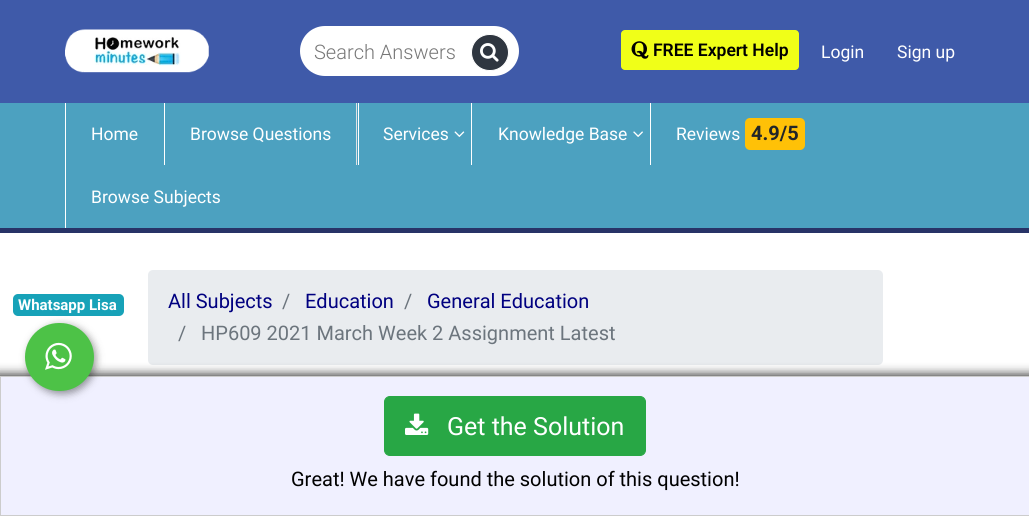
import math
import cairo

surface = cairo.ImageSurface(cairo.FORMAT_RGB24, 1029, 516)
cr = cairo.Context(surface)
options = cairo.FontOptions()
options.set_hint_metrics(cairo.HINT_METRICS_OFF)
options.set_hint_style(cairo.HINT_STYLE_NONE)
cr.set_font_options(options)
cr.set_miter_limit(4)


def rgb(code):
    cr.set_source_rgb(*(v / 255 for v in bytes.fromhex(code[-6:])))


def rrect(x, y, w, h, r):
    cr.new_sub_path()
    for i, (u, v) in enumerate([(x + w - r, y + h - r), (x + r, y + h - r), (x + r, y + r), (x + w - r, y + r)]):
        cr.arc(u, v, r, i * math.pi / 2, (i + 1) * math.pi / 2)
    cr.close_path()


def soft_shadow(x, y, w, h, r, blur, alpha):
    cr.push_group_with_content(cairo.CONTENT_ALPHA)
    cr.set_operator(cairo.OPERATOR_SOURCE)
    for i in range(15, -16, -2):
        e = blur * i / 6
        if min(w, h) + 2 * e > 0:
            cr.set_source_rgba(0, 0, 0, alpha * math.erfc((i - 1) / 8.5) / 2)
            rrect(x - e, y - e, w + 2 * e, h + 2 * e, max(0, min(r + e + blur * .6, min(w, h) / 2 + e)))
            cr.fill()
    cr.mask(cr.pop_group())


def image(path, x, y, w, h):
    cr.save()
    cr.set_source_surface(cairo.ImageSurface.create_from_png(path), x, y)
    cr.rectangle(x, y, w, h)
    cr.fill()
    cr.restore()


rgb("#ffffff")
cr.paint()
rgb("#3f5aa9")
cr.rectangle(0, 0, 1029, 103)
cr.fill()
image("img/1.png", 65, 29, 144, 44)
rgb("#ffffff")
rrect(300, 26, 219, 50, 25)
cr.fill()
rgb("#2f3640")
rrect(471.5, 34.5, 37, 36, 18)
cr.fill_preserve()
rgb("#ffffff")
cr.set_line_width(1)
cr.stroke()
image("img/2.png", 480, 43, 19, 19)
rgb("#f0ff18")
rrect(621, 30, 178, 40, 4)
cr.fill()
image("img/3.png", 631, 41, 18, 18)
for x, y, w, h, color in [
    (0, 103, 1029, 125, "#4ca1c0"),
    (0, 228, 1029, 5, "#283367"),
    (65, 103, 1, 125, "#ffffff"),
    (356, 103, 1, 62, "#dee2e6"),
    (164, 103, 1, 62, "#ffffff"),
    (358, 103, 1, 62, "#ffffff"),
]:
    rgb(color)
    cr.rectangle(x, y, w, h)
    cr.fill()
image("img/4.png", 454, 131, 11, 6)
cr.rectangle(471, 103, 1, 62)
cr.fill()
image("img/5.png", 633, 131, 10, 6)
cr.rectangle(650, 103, 1, 62)
cr.fill()
rgb("#ffc107")
rrect(745, 118, 60, 32, 5)
cr.fill()
rgb("#17a2b8")
rrect(13, 294, 111, 22, 5)
cr.fill()
rgb("#e9ecef")
rrect(148, 270, 735, 95, 5)
cr.fill()
rgb("#000000")
soft_shadow(-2, 374, 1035, 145, 0, 5, 0.75)
rgb("#f0f0ff")
cr.rectangle(0.5, 376.5, 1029, 139)
cr.fill_preserve()
rgb("#cccccc")
cr.stroke()
rgb("#000000")
soft_shadow(28, 325, 68, 69, 34, 4, 0.4)
rgb("#4dc247")
rrect(25, 323, 69, 68, 34)
cr.fill()
image("img/6.png", 45, 342, 27, 28)
rgb("#28a745")
rrect(384.5, 396.5, 261, 59, 5.5)
cr.fill_preserve()
cr.stroke()
image("img/7.png", 405, 413, 24, 22)
cr.select_font_face("Roboto Light")
cr.set_font_size(20)
rgb("#777777")
cr.move_to(314, 59)
cr.show_text("Search Answers")
cr.select_font_face("Roboto SemiBold")
cr.set_font_size(17.5)
rgb("#000000")
cr.move_to(653, 56)
cr.show_text("FREE Expert Help")
cr.select_font_face("Roboto")
rgb("#ffffff")
for x, y, s in [
    (821, 58, "Login"),
    (897, 58, "Sign up"),
    (91, 140, "Home"),
    (190, 140, "Browse Questions"),
    (383, 140, "Services"),
    (498, 140, "Knowledge Base"),
    (676, 140, "Reviews"),
]:
    cr.move_to(x, y)
    cr.show_text(s)
cr.select_font_face("Roboto", cairo.FONT_SLANT_NORMAL, cairo.FONT_WEIGHT_BOLD)
cr.set_font_size(20)
rgb("#212529")
cr.move_to(751, 140)
cr.show_text("4.9/5")
cr.select_font_face("Roboto")
cr.set_font_size(17.5)
rgb("#ffffff")
cr.move_to(91, 203)
cr.show_text("Browse Subjects")
cr.select_font_face("Roboto", cairo.FONT_SLANT_NORMAL, cairo.FONT_WEIGHT_BOLD)
cr.set_font_size(15)
cr.move_to(18, 310)
cr.show_text("Whatsapp Lisa")
cr.select_font_face("Roboto")
cr.set_font_size(20)
rgb("#000080")
cr.move_to(168, 308)
cr.show_text("All Subjects")
rgb("#6c757d")
cr.move_to(282, 308)
cr.show_text("/")
rgb("#000080")
cr.move_to(305, 308)
cr.show_text("Education")
rgb("#6c757d")
cr.move_to(404, 308)
cr.show_text("/")
rgb("#000080")
cr.move_to(427, 308)
cr.show_text("General Education")
rgb("#6c757d")
cr.move_to(178, 340)
cr.show_text("/")
cr.move_to(201, 340)
cr.show_text("HP609 2021 March Week 2 Assignment Latest")
cr.set_font_size(25)
rgb("#ffffff")
cr.move_to(447, 435)
cr.show_text("Get the Solution")
cr.set_font_size(20)
rgb("#000000")
cr.move_to(291, 486)
cr.show_text("Great! We have found the solution of this question!")
surface.write_to_png("page.png")
